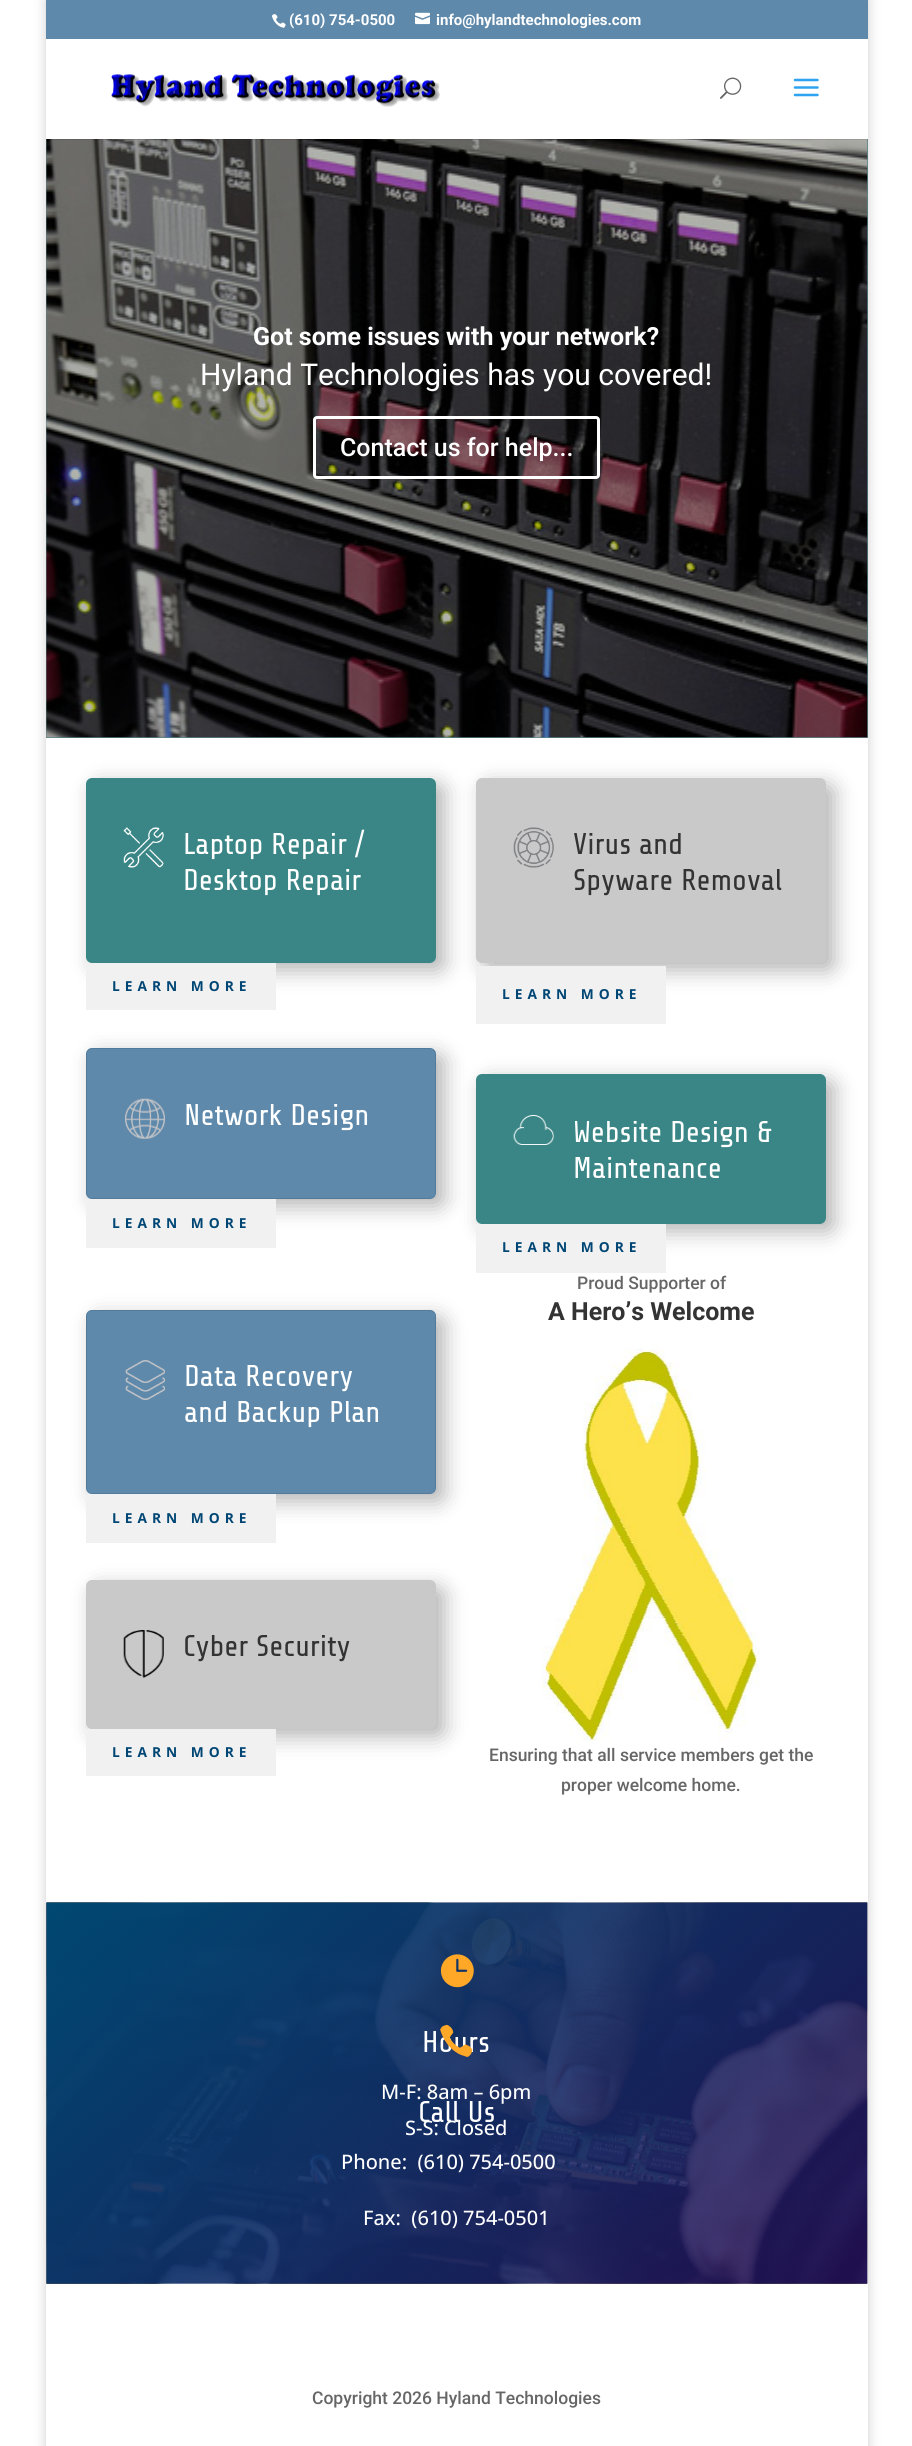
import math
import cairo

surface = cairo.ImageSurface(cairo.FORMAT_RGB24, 912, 2446)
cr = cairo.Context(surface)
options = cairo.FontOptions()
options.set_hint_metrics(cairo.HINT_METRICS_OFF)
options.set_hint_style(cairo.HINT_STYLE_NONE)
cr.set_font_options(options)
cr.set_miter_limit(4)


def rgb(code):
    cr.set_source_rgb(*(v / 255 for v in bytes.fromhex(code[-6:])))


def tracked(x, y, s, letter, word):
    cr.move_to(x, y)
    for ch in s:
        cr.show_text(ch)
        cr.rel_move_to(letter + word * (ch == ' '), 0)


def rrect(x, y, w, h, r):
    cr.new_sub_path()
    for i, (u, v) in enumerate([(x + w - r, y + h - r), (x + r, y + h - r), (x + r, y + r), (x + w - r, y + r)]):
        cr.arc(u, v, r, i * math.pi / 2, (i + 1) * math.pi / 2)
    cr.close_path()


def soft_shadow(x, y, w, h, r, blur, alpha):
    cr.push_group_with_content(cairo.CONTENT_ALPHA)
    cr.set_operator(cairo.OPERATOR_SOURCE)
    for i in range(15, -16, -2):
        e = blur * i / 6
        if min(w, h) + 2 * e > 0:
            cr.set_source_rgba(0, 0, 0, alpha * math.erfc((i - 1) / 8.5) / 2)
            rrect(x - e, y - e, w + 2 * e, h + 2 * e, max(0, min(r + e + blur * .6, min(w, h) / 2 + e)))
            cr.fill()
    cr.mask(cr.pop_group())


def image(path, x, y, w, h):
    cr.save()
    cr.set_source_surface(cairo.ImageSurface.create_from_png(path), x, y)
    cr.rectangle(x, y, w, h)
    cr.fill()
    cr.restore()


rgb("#ffffff")
cr.paint()
cr.save()
cr.set_fill_rule(cairo.FILL_RULE_EVEN_ODD)
cr.new_path()
cr.move_to(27, 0)
cr.line_to(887, 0)
cr.line_to(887, 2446)
cr.line_to(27, 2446)
cr.close_path()
cr.move_to(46, 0)
cr.line_to(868, 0)
cr.line_to(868, 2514)
cr.line_to(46, 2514)
cr.close_path()
cr.clip()
rgb("#000000")
soft_shadow(46, 0, 822, 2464, 0, 6, 0.2)
cr.restore()
cr.set_source_rgba(0, 0.271, 0.478, 0.63)
cr.rectangle(46, 0, 822, 39)
cr.fill()
image("img/1.png", 271, 14, 15, 14)
image("img/2.png", 415, 12, 15, 13)
rgb("#7ebec5")
cr.rectangle(46, 139, 822, 599)
cr.fill()
image("img/6.png", 46, 139, 822, 599)
cr.set_source_rgba(0, 0, 0, 0.3)
cr.rectangle(46, 139, 822, 599)
cr.fill()
cr.set_source_rgba(0, 0, 0, 0.1)
cr.new_path()
cr.move_to(46, 40)
cr.line_to(46, 140)
cr.line_to(868, 140)
cr.line_to(868, 40)
cr.line_to(868, 139)
cr.line_to(46, 139)
cr.close_path()
cr.fill()
rgb("#ffffff")
cr.rectangle(46, 39, 822, 100)
cr.fill()
image("img/3.png", 111, 74, 329, 33)
image("img/4.png", 720, 77, 22, 22)
image("img/5.png", 793, 78, 26, 19)
rrect(314.5, 417.5, 284, 60, 2.5)
cr.set_line_width(3)
cr.stroke()
cr.rectangle(46, 738, 822, 1708)
cr.fill()
cr.save()
cr.set_fill_rule(cairo.FILL_RULE_EVEN_ODD)
cr.new_path()
cr.move_to(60, 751)
cr.line_to(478, 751)
cr.line_to(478, 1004)
cr.line_to(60, 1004)
cr.close_path()
cr.move_to(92, 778)
cr.line_to(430, 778)
cr.curve_to(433.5, 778, 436, 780.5, 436, 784)
cr.line_to(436, 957)
cr.curve_to(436, 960.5, 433.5, 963, 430, 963)
cr.line_to(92, 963)
cr.curve_to(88.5, 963, 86, 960.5, 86, 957)
cr.line_to(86, 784)
cr.curve_to(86, 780.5, 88.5, 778, 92, 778)
cr.close_path()
cr.clip()
rgb("#000000")
soft_shadow(94, 785, 350, 185, 6, 11, 0.3)
cr.restore()
cr.set_source_rgba(0, 0.388, 0.388, 0.77)
rrect(86, 778, 350, 185, 6)
cr.fill()
image("img/7.png", 123, 827, 41, 41)
rgb("#f1f1f1")
cr.rectangle(86, 963, 190, 47)
cr.fill()
cr.save()
cr.set_fill_rule(cairo.FILL_RULE_EVEN_ODD)
cr.new_path()
cr.move_to(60, 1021)
cr.line_to(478, 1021)
cr.line_to(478, 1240)
cr.line_to(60, 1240)
cr.close_path()
cr.move_to(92, 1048)
cr.line_to(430, 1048)
cr.curve_to(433.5, 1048, 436, 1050.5, 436, 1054)
cr.line_to(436, 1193)
cr.curve_to(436, 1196.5, 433.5, 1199, 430, 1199)
cr.line_to(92, 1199)
cr.curve_to(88.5, 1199, 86, 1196.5, 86, 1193)
cr.line_to(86, 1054)
cr.curve_to(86, 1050.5, 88.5, 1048, 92, 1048)
cr.close_path()
cr.clip()
rgb("#000000")
soft_shadow(94, 1055, 350, 151, 6, 11, 0.3)
cr.restore()
cr.set_source_rgba(0, 0.271, 0.478, 0.63)
rrect(86, 1048, 350, 151, 6)
cr.fill()
rrect(86.5, 1048.5, 349, 150, 5.5)
cr.set_source_rgba(0.082, 0.192, 0.306, 0.17)
cr.set_line_width(1)
cr.stroke()
image("img/8.png", 125, 1098, 40, 41)
rgb("#f1f1f1")
cr.rectangle(86, 1199, 190, 49)
cr.fill()
rgb("#000000")
soft_shadow(484, 785, 350, 185, 6, 11, 0.3)
rgb("#c9c9c9")
rrect(476, 778, 350, 185, 6)
cr.fill()
image("img/9.png", 513, 827, 41, 41)
rgb("#f1f1f1")
cr.rectangle(476, 966, 190, 58)
cr.fill()
cr.save()
cr.set_fill_rule(cairo.FILL_RULE_EVEN_ODD)
cr.new_path()
cr.move_to(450, 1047)
cr.line_to(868, 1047)
cr.line_to(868, 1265)
cr.line_to(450, 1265)
cr.close_path()
cr.move_to(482, 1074)
cr.line_to(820, 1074)
cr.curve_to(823.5, 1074, 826, 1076.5, 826, 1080)
cr.line_to(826, 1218)
cr.curve_to(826, 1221.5, 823.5, 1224, 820, 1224)
cr.line_to(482, 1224)
cr.curve_to(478.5, 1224, 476, 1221.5, 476, 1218)
cr.line_to(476, 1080)
cr.curve_to(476, 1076.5, 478.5, 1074, 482, 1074)
cr.close_path()
cr.clip()
rgb("#000000")
soft_shadow(484, 1081, 350, 150, 6, 11, 0.3)
cr.restore()
cr.set_source_rgba(0, 0.388, 0.388, 0.77)
rrect(476, 1074, 350, 150, 6)
cr.fill()
image("img/10.png", 513, 1115, 41, 30)
rgb("#f1f1f1")
cr.rectangle(476, 1224, 190, 49)
cr.fill()
cr.save()
cr.set_fill_rule(cairo.FILL_RULE_EVEN_ODD)
cr.new_path()
cr.move_to(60, 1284)
cr.line_to(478, 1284)
cr.line_to(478, 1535)
cr.line_to(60, 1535)
cr.close_path()
cr.move_to(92, 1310)
cr.line_to(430, 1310)
cr.curve_to(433.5, 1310, 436, 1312.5, 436, 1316)
cr.line_to(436, 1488)
cr.curve_to(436, 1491.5, 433.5, 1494, 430, 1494)
cr.line_to(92, 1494)
cr.curve_to(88.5, 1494, 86, 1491.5, 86, 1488)
cr.line_to(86, 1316)
cr.curve_to(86, 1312.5, 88.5, 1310, 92, 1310)
cr.close_path()
cr.clip()
rgb("#000000")
soft_shadow(94, 1318, 350, 183, 6, 11, 0.3)
cr.restore()
cr.set_source_rgba(0, 0.271, 0.478, 0.63)
rrect(86, 1310, 350, 184, 6)
cr.fill()
rrect(86.5, 1310.5, 349, 183, 5.5)
cr.set_source_rgba(0.082, 0.192, 0.306, 0.17)
cr.stroke()
image("img/11.png", 125, 1360, 40, 40)
rgb("#f1f1f1")
cr.rectangle(86, 1494, 190, 49)
cr.fill()
rgb("#000000")
soft_shadow(94, 1588, 350, 148, 6, 11, 0.3)
rgb("#c9c9c9")
rrect(86, 1580, 350, 149, 6)
cr.fill()
image("img/12.png", 123, 1630, 41, 48)
rgb("#f1f1f1")
cr.rectangle(86, 1729, 190, 47)
cr.fill()
image("img/13.png", 542, 1348, 218, 393)
image("img/14.png", 46, 1902, 822, 382)
image("img/15.png", 440, 1954, 34, 34)
cr.select_font_face("Roboto", cairo.FONT_SLANT_NORMAL, cairo.FONT_WEIGHT_BOLD)
cr.set_font_size(15)
rgb("#ffffff")
cr.move_to(289, 25)
cr.show_text("(610) 754-0500")
cr.move_to(436, 25)
cr.show_text("info@hylandtechnologies.com")
cr.set_font_size(25)
cr.move_to(253, 345)
cr.show_text("Got some issues with your network?")
cr.select_font_face("Roboto")
cr.set_font_size(30)
cr.move_to(200, 385)
cr.show_text("Hyland Technologies has you covered!")
cr.select_font_face("Roboto Medium")
cr.set_font_size(25)
cr.move_to(340, 456)
cr.show_text("Contact us for help...")
cr.select_font_face("Share Tech")
cr.set_font_size(30)
cr.move_to(183, 854)
cr.show_text("Laptop Repair /")
cr.move_to(183, 890)
cr.show_text("Desktop Repair")
cr.select_font_face("Open Sans", cairo.FONT_SLANT_NORMAL, cairo.FONT_WEIGHT_BOLD)
cr.set_font_size(13.75)
rgb("#004675")
tracked(112, 991, "LEARN MORE", 5, 0)
cr.select_font_face("Share Tech")
cr.set_font_size(30)
rgb("#ffffff")
cr.move_to(184, 1125)
cr.show_text("Network Design")
cr.select_font_face("Open Sans", cairo.FONT_SLANT_NORMAL, cairo.FONT_WEIGHT_BOLD)
cr.set_font_size(13.75)
rgb("#004675")
tracked(112, 1228, "LEARN MORE", 5, 0)
cr.select_font_face("Share Tech")
cr.set_font_size(30)
rgb("#333333")
cr.move_to(573, 854)
cr.show_text("Virus and")
cr.move_to(573, 890)
cr.show_text("Spyware Removal")
cr.select_font_face("Open Sans", cairo.FONT_SLANT_NORMAL, cairo.FONT_WEIGHT_BOLD)
cr.set_font_size(13.75)
rgb("#004675")
tracked(502, 999, "LEARN MORE", 5, 0)
cr.select_font_face("Share Tech")
cr.set_font_size(30)
rgb("#ffffff")
cr.move_to(573, 1142)
cr.show_text("Website Design &")
cr.move_to(573, 1178)
cr.show_text("Maintenance")
cr.select_font_face("Open Sans", cairo.FONT_SLANT_NORMAL, cairo.FONT_WEIGHT_BOLD)
cr.set_font_size(13.75)
rgb("#004675")
tracked(502, 1252, "LEARN MORE", 5, 0)
cr.select_font_face("Share Tech")
cr.set_font_size(30)
rgb("#ffffff")
cr.move_to(184, 1386)
cr.show_text("Data Recovery")
cr.move_to(184, 1422)
cr.show_text("and Backup Plan")
cr.select_font_face("Open Sans", cairo.FONT_SLANT_NORMAL, cairo.FONT_WEIGHT_BOLD)
cr.set_font_size(13.75)
rgb("#004675")
tracked(112, 1523, "LEARN MORE", 5, 0)
cr.select_font_face("Share Tech")
cr.set_font_size(30)
rgb("#333333")
cr.move_to(183, 1656)
cr.show_text("Cyber Security")
cr.select_font_face("Open Sans", cairo.FONT_SLANT_NORMAL, cairo.FONT_WEIGHT_BOLD)
cr.set_font_size(13.75)
rgb("#004675")
tracked(112, 1757, "LEARN MORE", 5, 0)
cr.select_font_face("Roboto Medium")
cr.set_font_size(17.5)
rgb("#666666")
cr.move_to(577, 1289)
cr.show_text("Proud Supporter of")
cr.select_font_face("Roboto", cairo.FONT_SLANT_NORMAL, cairo.FONT_WEIGHT_BOLD)
cr.set_font_size(25)
rgb("#333333")
cr.move_to(548, 1320)
cr.show_text("A Hero’s Welcome")
cr.select_font_face("Roboto Medium")
cr.set_font_size(17.5)
rgb("#666666")
cr.move_to(489, 1761)
cr.show_text("Ensuring that all service members get the")
cr.move_to(561, 1791)
cr.show_text("proper welcome home.")
cr.select_font_face("Share Tech")
cr.set_font_size(30)
rgb("#ffffff")
cr.move_to(422, 2052)
cr.show_text("Hours")
cr.select_font_face("Open Sans Medium")
cr.set_font_size(20)
cr.move_to(381, 2099)
cr.show_text("M-F: 8am – 6pm")
cr.move_to(405, 2135)
cr.show_text("S-S: Closed")
image("img/16.png", 440, 2024, 33, 33)
cr.select_font_face("Share Tech")
cr.set_font_size(30)
cr.move_to(418, 2122)
cr.show_text("Call Us")
cr.select_font_face("Open Sans Medium")
cr.set_font_size(20)
cr.move_to(341, 2169)
cr.show_text("Phone:  (610) 754-0500")
cr.move_to(363, 2225)
cr.show_text("Fax:  (610) 754-0501")
cr.select_font_face("Roboto Medium")
cr.set_font_size(17.5)
rgb("#666666")
cr.move_to(312, 2404)
cr.show_text("Copyright 2026 Hyland Technologies")
surface.write_to_png("page.png")
